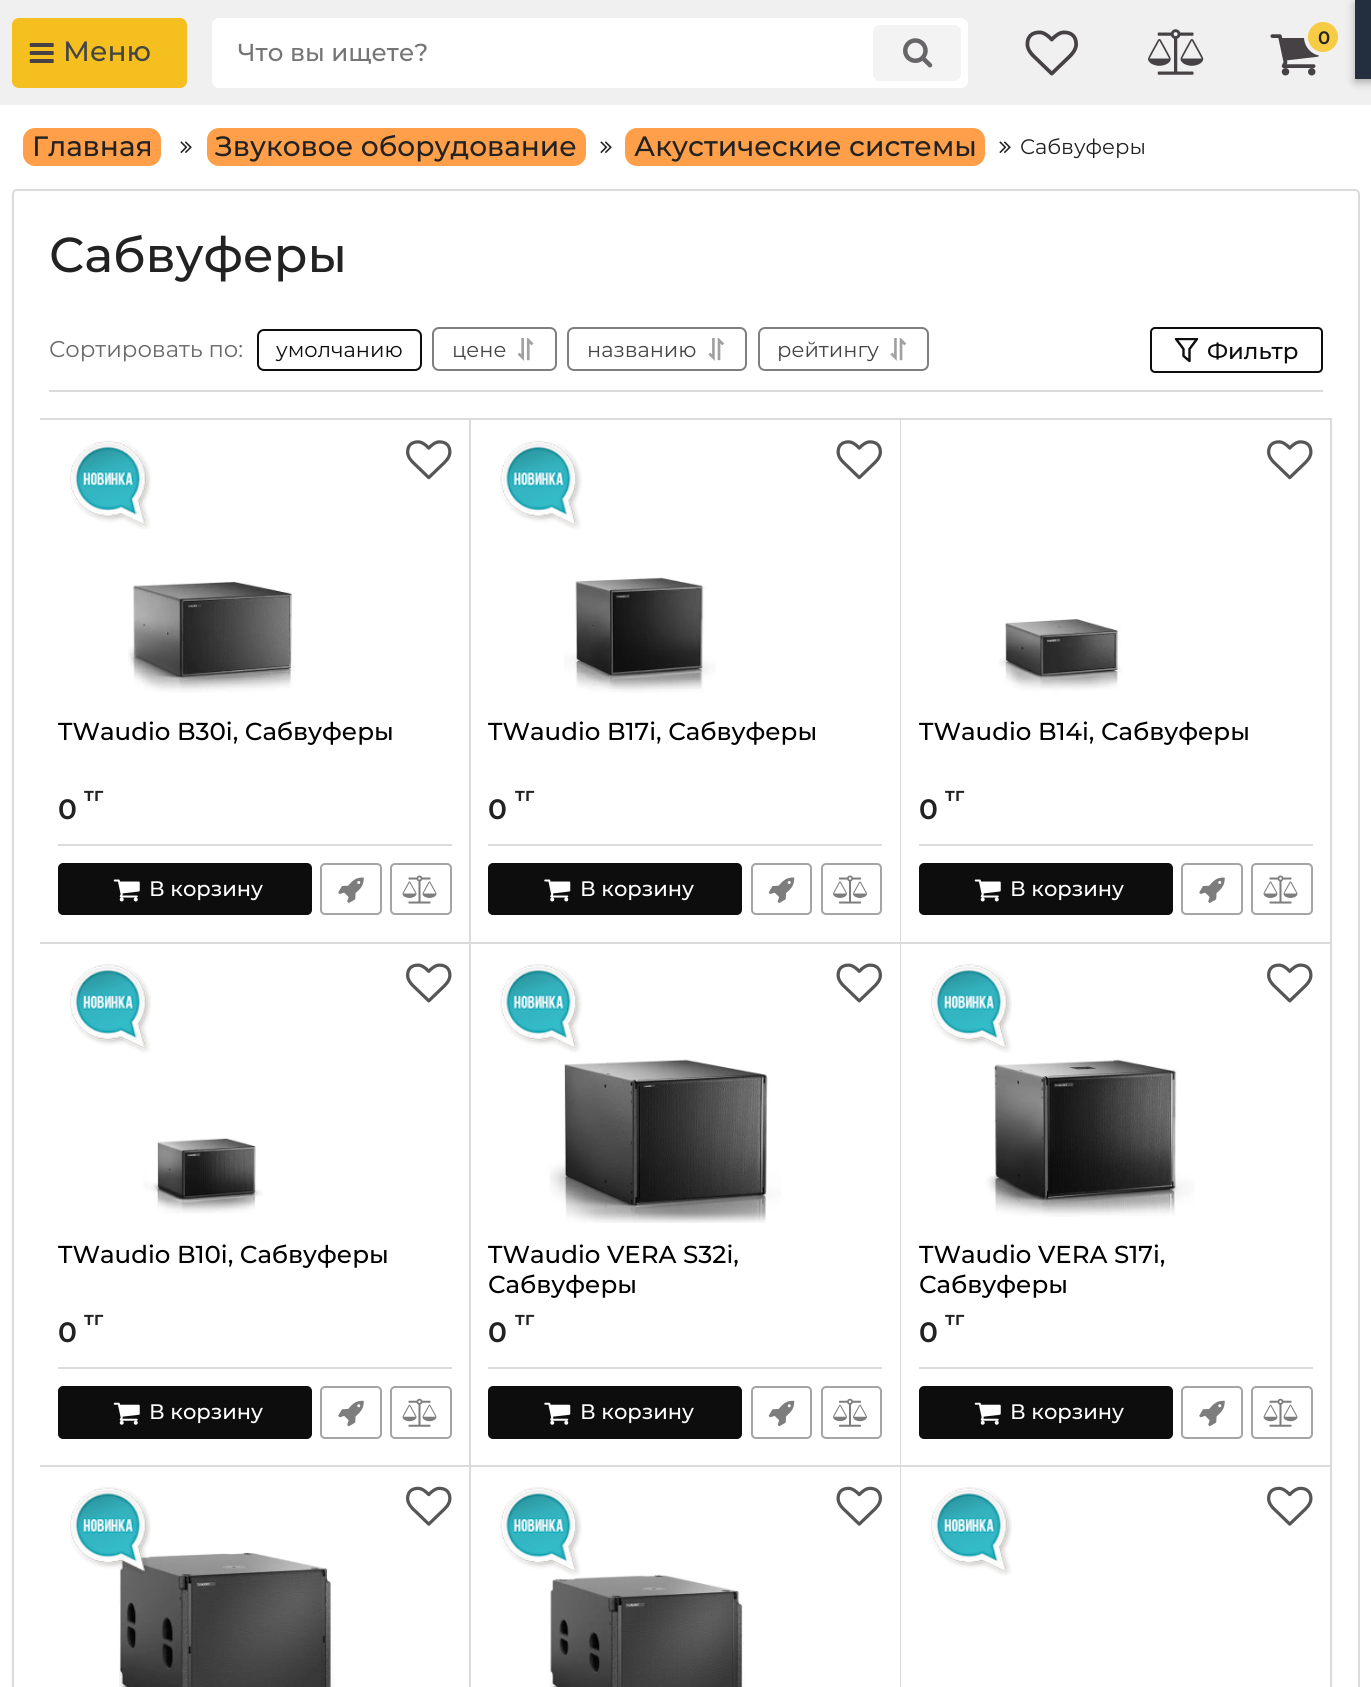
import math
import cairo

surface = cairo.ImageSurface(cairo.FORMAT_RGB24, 1371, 1687)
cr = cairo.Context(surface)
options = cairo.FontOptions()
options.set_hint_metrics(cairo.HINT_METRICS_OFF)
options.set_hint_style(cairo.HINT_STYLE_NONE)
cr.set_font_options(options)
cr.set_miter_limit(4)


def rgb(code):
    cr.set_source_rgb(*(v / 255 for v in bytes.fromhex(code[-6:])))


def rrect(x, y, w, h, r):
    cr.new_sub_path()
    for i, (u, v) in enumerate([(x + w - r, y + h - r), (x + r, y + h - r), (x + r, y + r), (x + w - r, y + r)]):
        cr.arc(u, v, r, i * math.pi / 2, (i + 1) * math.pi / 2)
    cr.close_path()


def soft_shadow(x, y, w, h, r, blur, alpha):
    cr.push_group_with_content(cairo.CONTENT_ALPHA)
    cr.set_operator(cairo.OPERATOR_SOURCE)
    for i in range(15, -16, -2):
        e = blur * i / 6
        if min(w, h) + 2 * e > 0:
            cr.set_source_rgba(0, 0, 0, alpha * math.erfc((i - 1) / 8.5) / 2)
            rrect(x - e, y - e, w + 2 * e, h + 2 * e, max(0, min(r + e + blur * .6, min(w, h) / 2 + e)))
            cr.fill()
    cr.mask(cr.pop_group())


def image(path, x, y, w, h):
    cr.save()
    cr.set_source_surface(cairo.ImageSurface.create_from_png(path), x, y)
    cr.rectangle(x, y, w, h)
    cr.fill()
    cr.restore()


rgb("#ffffff")
cr.paint()
rgb("#f0f0f0")
cr.rectangle(0, 0, 1371, 105)
cr.fill()
image("img/1.png", 1025, 30, 53, 46)
image("img/2.png", 1148, 29, 56, 46)
image("img/3.png", 1270, 34, 50, 42)
rgb("#f5cc43")
cr.arc(1323, 37, 17, 0, 2 * math.pi)
cr.fill_preserve()
rgb("#f0f0f0")
cr.set_line_width(4)
cr.stroke()
rgb("#f5bf1f")
rrect(12, 18, 175, 70, 7)
cr.fill()
image("img/4.png", 29, 43, 25, 20)
rgb("#ffffff")
rrect(212, 18, 756, 70, 7)
cr.fill()
rgb("#f3f3f3")
rrect(873, 25, 88, 56, 7)
cr.fill()
image("img/5.png", 903, 38, 30, 30)
rgb("#ff9f49")
rrect(23, 128, 138, 38, 12)
cr.fill()
image("img/6.png", 180, 141, 12, 12)
rrect(207, 128, 379, 38, 12)
cr.fill()
image("img/6.png", 600, 141, 12, 12)
rrect(625, 128, 360, 38, 12)
cr.fill()
image("img/6.png", 999, 141, 12, 12)
rgb("#000000")
soft_shadow(1355, 4, 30, 78, 0, 4.5, 0.3)
rgb("#232f3e")
cr.rectangle(1355, 0, 16, 79)
cr.fill()
rrect(13, 190, 1346, 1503, 4)
rgb("#dbdbdb")
cr.set_line_width(2)
cr.stroke()
cr.rectangle(49, 390, 1274, 2)
cr.fill()
rrect(258, 330, 163, 40, 6)
rgb("#0d0d0d")
cr.stroke()
rrect(433, 328, 123, 42, 6)
rgb("#7f7f7f")
cr.stroke()
image("img/7.png", 517, 338, 17, 23)
rrect(568, 328, 178, 42, 6)
cr.stroke()
image("img/8.png", 708, 338, 17, 23)
rrect(759, 328, 169, 42, 6)
cr.stroke()
image("img/8.png", 890, 338, 17, 23)
rrect(1151, 328, 171, 44, 4)
rgb("#0d0d0d")
cr.stroke()
cr.save()
cr.rectangle(1174, 338, 25, 24)
cr.clip()
cr.new_path()
cr.move_to(1176, 339)
cr.line_to(1197, 339)
cr.line_to(1189.5, 349)
cr.line_to(1189.5, 361)
cr.line_to(1183.5, 356)
cr.line_to(1183.5, 349)
cr.close_path()
cr.set_line_width(2.4)
cr.set_line_cap(cairo.LINE_CAP_ROUND)
cr.set_line_join(cairo.LINE_JOIN_ROUND)
cr.stroke()
cr.restore()
rgb("#dbdbdb")
cr.rectangle(40, 418, 1292, 2)
cr.fill()
cr.rectangle(469, 418, 2, 525)
cr.fill()
image("img/9.png", 70, 441, 81, 88)
image("img/10.png", 128, 582, 167, 111)
image("img/11.png", 406, 440, 46, 40)
cr.rectangle(58, 844, 394, 2)
cr.fill()
rgb("#0d0d0d")
rrect(59, 864, 252, 50, 4)
cr.fill_preserve()
cr.stroke()
image("img/12.png", 113, 879, 27, 23)
rrect(321, 864, 60, 50, 4)
rgb("#a5a5a5")
cr.stroke()
image("img/13.png", 338, 877, 26, 26)
rrect(391, 864, 60, 50, 4)
cr.stroke()
image("img/14.png", 402, 875, 35, 29)
rgb("#dbdbdb")
cr.rectangle(900, 418, 1, 525)
cr.fill()
image("img/15.png", 500, 441, 82, 88)
image("img/16.png", 564, 577, 152, 116)
image("img/17.png", 836, 440, 46, 40)
cr.rectangle(488, 844, 394, 2)
cr.fill()
rgb("#0d0d0d")
rrect(489, 864, 252, 50, 4)
cr.fill_preserve()
cr.stroke()
image("img/18.png", 544, 879, 27, 23)
rrect(752, 864, 59, 50, 4)
rgb("#a5a5a5")
cr.stroke()
image("img/19.png", 768, 877, 27, 26)
rrect(822, 864, 59, 50, 4)
cr.stroke()
image("img/20.png", 833, 875, 34, 29)
rgb("#dbdbdb")
cr.rectangle(1330, 418, 2, 525)
cr.fill()
image("img/11.png", 1267, 440, 46, 40)
image("img/21.png", 998, 619, 125, 72)
cr.rectangle(919, 844, 394, 2)
cr.fill()
rgb("#0d0d0d")
rrect(920, 864, 252, 50, 4)
cr.fill_preserve()
cr.stroke()
image("img/12.png", 974, 879, 27, 23)
rrect(1182, 864, 60, 50, 4)
rgb("#a5a5a5")
cr.stroke()
image("img/13.png", 1199, 877, 26, 26)
rrect(1252, 864, 60, 50, 4)
cr.stroke()
image("img/14.png", 1263, 875, 35, 29)
rgb("#dbdbdb")
cr.rectangle(40, 942, 1292, 2)
cr.fill()
cr.rectangle(469, 942, 2, 525)
cr.fill()
image("img/22.png", 70, 964, 81, 89)
image("img/23.png", 143, 1138, 120, 76)
image("img/24.png", 406, 963, 46, 40)
cr.rectangle(58, 1367, 394, 2)
cr.fill()
rgb("#0d0d0d")
rrect(59, 1387, 252, 51, 4)
cr.fill_preserve()
cr.stroke()
image("img/25.png", 113, 1402, 27, 23)
rrect(321, 1387, 60, 51, 4)
rgb("#a5a5a5")
cr.stroke()
image("img/26.png", 338, 1400, 26, 27)
rrect(391, 1387, 60, 51, 4)
cr.stroke()
image("img/27.png", 402, 1398, 35, 29)
rgb("#dbdbdb")
cr.rectangle(900, 942, 1, 525)
cr.fill()
image("img/28.png", 500, 964, 82, 89)
image("img/29.png", 549, 1059, 232, 164)
image("img/30.png", 836, 963, 46, 40)
cr.rectangle(488, 1367, 394, 2)
cr.fill()
rgb("#0d0d0d")
rrect(489, 1387, 252, 51, 4)
cr.fill_preserve()
cr.stroke()
image("img/31.png", 544, 1402, 27, 23)
rrect(752, 1387, 59, 51, 4)
rgb("#a5a5a5")
cr.stroke()
image("img/32.png", 768, 1400, 27, 27)
rrect(822, 1387, 59, 51, 4)
cr.stroke()
image("img/33.png", 833, 1398, 34, 29)
rgb("#dbdbdb")
cr.rectangle(1330, 942, 2, 525)
cr.fill()
image("img/34.png", 931, 964, 81, 89)
image("img/35.png", 986, 1059, 209, 158)
image("img/24.png", 1267, 963, 46, 40)
cr.rectangle(919, 1367, 394, 2)
cr.fill()
rgb("#0d0d0d")
rrect(920, 1387, 252, 51, 4)
cr.fill_preserve()
cr.stroke()
image("img/25.png", 974, 1402, 27, 23)
rrect(1182, 1387, 60, 51, 4)
rgb("#a5a5a5")
cr.stroke()
image("img/26.png", 1199, 1400, 26, 27)
rrect(1252, 1387, 60, 51, 4)
cr.stroke()
image("img/27.png", 1263, 1398, 35, 29)
rgb("#dbdbdb")
cr.rectangle(40, 1465, 1292, 2)
cr.fill()
cr.rectangle(469, 1465, 2, 222)
cr.fill()
image("img/37.png", 119, 1552, 216, 135)
image("img/36.png", 70, 1487, 81, 87)
image("img/38.png", 406, 1486, 46, 40)
cr.rectangle(900, 1465, 1, 222)
cr.fill()
image("img/40.png", 549, 1574, 196, 113)
image("img/39.png", 500, 1487, 82, 89)
image("img/41.png", 836, 1486, 46, 40)
cr.rectangle(1330, 1465, 2, 222)
cr.fill()
image("img/42.png", 931, 1487, 81, 89)
image("img/38.png", 1267, 1486, 46, 40)
cr.select_font_face("Montserrat SemiBold")
cr.set_font_size(18)
rgb("#222222")
cr.move_to(1318, 44)
cr.show_text("0")
cr.select_font_face("Montserrat Medium")
cr.set_font_size(28)
rgb("#454545")
cr.move_to(63, 61)
cr.show_text("Меню")
cr.set_font_size(24.5)
rgb("#757575")
cr.move_to(238, 61)
cr.show_text("Что вы ищете?")
cr.set_font_size(28)
rgb("#222222")
for x, y, s in [
    (32, 156, "Главная"),
    (215, 156, "Звуковое оборудование"),
    (634, 156, "Акустические системы"),
]:
    cr.move_to(x, y)
    cr.show_text(s)
cr.select_font_face("Montserrat")
cr.set_font_size(21)
cr.move_to(1020, 154)
cr.show_text("Сабвуферы")
cr.select_font_face("Montserrat Medium")
cr.set_font_size(49)
cr.move_to(49, 272)
cr.show_text("Сабвуферы")
cr.select_font_face("Montserrat")
cr.set_font_size(22.75)
rgb("#696868")
cr.move_to(49, 357)
cr.show_text("Сортировать по:")
cr.set_font_size(21)
rgb("#0d0d0d")
cr.move_to(276, 357)
cr.show_text("умолчанию")
rgb("#454545")
for x, y, s in [
    (452, 357, "цене"),
    (587, 357, "названию"),
    (777, 357, "рейтингу"),
]:
    cr.move_to(x, y)
    cr.show_text(s)
cr.select_font_face("Montserrat Medium")
cr.set_font_size(22.75)
rgb("#0d0d0d")
cr.move_to(1207, 359)
cr.show_text("Фильтр")
cr.set_font_size(24.5)
rgb("#000000")
cr.move_to(58, 740)
cr.show_text("TWaudio B30i, Сабвуферы")
cr.select_font_face("Montserrat SemiBold")
cr.set_font_size(19)
rgb("#222222")
cr.move_to(84, 801)
cr.show_text("тг")
cr.set_font_size(28)
cr.move_to(58, 819)
cr.show_text("0")
cr.select_font_face("Montserrat Medium")
cr.set_font_size(21)
rgb("#ffffff")
cr.move_to(149, 896)
cr.show_text("В корзину")
cr.set_font_size(24.5)
rgb("#000000")
cr.move_to(488, 740)
cr.show_text("TWaudio B17i, Сабвуферы")
cr.select_font_face("Montserrat SemiBold")
cr.set_font_size(19)
rgb("#222222")
cr.move_to(515, 801)
cr.show_text("тг")
cr.set_font_size(28)
cr.move_to(488, 819)
cr.show_text("0")
cr.select_font_face("Montserrat Medium")
cr.set_font_size(21)
rgb("#ffffff")
cr.move_to(580, 896)
cr.show_text("В корзину")
cr.set_font_size(24.5)
rgb("#000000")
cr.move_to(919, 740)
cr.show_text("TWaudio B14i, Сабвуферы")
cr.select_font_face("Montserrat SemiBold")
cr.set_font_size(19)
rgb("#222222")
cr.move_to(945, 801)
cr.show_text("тг")
cr.set_font_size(28)
cr.move_to(919, 819)
cr.show_text("0")
cr.select_font_face("Montserrat Medium")
cr.set_font_size(21)
rgb("#ffffff")
cr.move_to(1010, 896)
cr.show_text("В корзину")
cr.set_font_size(24.5)
rgb("#000000")
cr.move_to(58, 1263)
cr.show_text("TWaudio B10i, Сабвуферы")
cr.select_font_face("Montserrat SemiBold")
cr.set_font_size(19)
rgb("#222222")
cr.move_to(84, 1325)
cr.show_text("тг")
cr.set_font_size(28)
cr.move_to(58, 1342)
cr.show_text("0")
cr.select_font_face("Montserrat Medium")
cr.set_font_size(21)
rgb("#ffffff")
cr.move_to(149, 1419)
cr.show_text("В корзину")
cr.set_font_size(24.5)
rgb("#000000")
cr.move_to(488, 1263)
cr.show_text("TWaudio VERA S32i,")
cr.move_to(488, 1293)
cr.show_text("Сабвуферы")
cr.select_font_face("Montserrat SemiBold")
cr.set_font_size(19)
rgb("#222222")
cr.move_to(515, 1325)
cr.show_text("тг")
cr.set_font_size(28)
cr.move_to(488, 1342)
cr.show_text("0")
cr.select_font_face("Montserrat Medium")
cr.set_font_size(21)
rgb("#ffffff")
cr.move_to(580, 1419)
cr.show_text("В корзину")
cr.set_font_size(24.5)
rgb("#000000")
cr.move_to(919, 1263)
cr.show_text("TWaudio VERA S17i,")
cr.move_to(919, 1293)
cr.show_text("Сабвуферы")
cr.select_font_face("Montserrat SemiBold")
cr.set_font_size(19)
rgb("#222222")
cr.move_to(945, 1325)
cr.show_text("тг")
cr.set_font_size(28)
cr.move_to(919, 1342)
cr.show_text("0")
cr.select_font_face("Montserrat Medium")
cr.set_font_size(21)
rgb("#ffffff")
cr.move_to(1010, 1419)
cr.show_text("В корзину")
surface.write_to_png("page.png")
